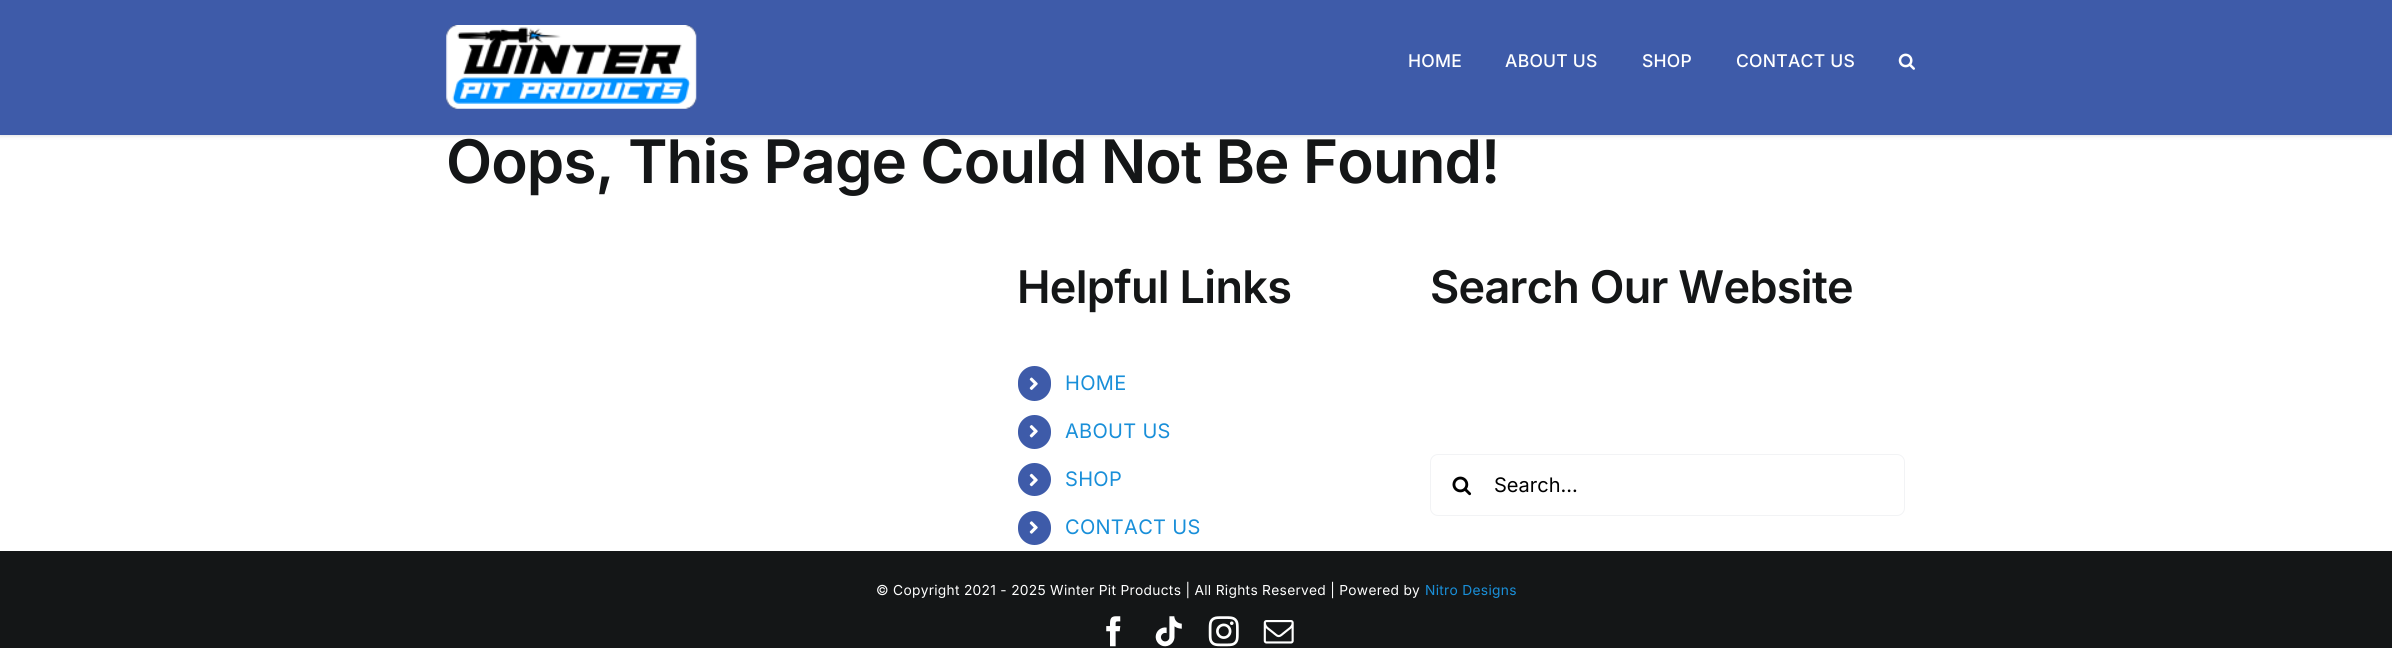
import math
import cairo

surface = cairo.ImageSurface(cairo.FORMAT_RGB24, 2392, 648)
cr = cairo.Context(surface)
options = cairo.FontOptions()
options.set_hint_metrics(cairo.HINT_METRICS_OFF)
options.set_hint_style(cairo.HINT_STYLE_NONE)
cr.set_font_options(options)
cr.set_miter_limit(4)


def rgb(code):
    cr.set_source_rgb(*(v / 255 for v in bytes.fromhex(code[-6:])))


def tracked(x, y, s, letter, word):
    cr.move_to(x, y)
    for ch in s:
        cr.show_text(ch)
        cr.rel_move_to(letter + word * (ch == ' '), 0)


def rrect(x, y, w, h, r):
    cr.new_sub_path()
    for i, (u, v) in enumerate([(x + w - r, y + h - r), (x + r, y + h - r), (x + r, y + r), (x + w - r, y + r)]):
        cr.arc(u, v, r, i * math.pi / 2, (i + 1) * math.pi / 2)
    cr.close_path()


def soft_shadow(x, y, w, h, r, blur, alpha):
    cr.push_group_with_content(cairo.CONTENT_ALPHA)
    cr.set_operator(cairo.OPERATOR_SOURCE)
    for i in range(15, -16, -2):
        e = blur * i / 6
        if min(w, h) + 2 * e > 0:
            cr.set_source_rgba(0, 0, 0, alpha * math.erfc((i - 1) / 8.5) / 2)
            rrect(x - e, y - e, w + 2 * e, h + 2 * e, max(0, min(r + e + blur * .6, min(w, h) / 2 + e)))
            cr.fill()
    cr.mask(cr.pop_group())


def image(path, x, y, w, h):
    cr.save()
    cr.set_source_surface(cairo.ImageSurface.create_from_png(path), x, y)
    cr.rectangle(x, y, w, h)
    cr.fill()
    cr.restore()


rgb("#ffffff")
cr.paint()
rgb("#000000")
soft_shadow(0, 1, 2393, 135, 0, 2, 0.12)
rgb("#3e5ba9")
cr.rectangle(0, 0, 2392, 135)
cr.fill()
image("img/1.png", 446, 25, 251, 84)
image("img/2.png", 1898, 53, 17, 17)
rrect(1018, 366, 33, 35, 16.5)
cr.fill()
image("img/3.png", 1029, 377, 9, 13)
rrect(1018, 415, 33, 34, 16.5)
cr.fill()
image("img/4.png", 1029, 425, 9, 13)
cr.arc(1034.5, 479.5, 16.5, 0, 2 * math.pi)
cr.fill()
image("img/5.png", 1029, 473, 9, 14)
rrect(1018, 511, 33, 34, 16.5)
cr.fill()
image("img/6.png", 1029, 521, 9, 13)
rrect(1430.5, 454.5, 474, 61, 7.5)
rgb("#f2f3f5")
cr.set_line_width(1)
cr.stroke()
image("img/7.png", 1452, 476, 20, 20)
rgb("#141617")
cr.rectangle(0, 551, 2392, 97)
cr.fill()
image("img/8.png", 1106, 616, 15, 31)
image("img/9.png", 1155, 616, 27, 31)
image("img/10.png", 1208, 616, 31, 31)
image("img/11.png", 1263, 620, 31, 24)
cr.select_font_face("Inter Medium")
cr.set_font_size(17.5)
rgb("#ffffff")
for x, y, s in [
    (1408, 67, "HOME"),
    (1505, 67, "ABOUT US"),
    (1642, 67, "SHOP"),
    (1736, 67, "CONTACT US"),
]:
    tracked(x, y, s, 0.25, 0)
cr.select_font_face("Inter SemiBold")
cr.set_font_size(60)
rgb("#141617")
tracked(446, 183, "Oops, This Page Could Not Be Found!", -0.9, 0)
cr.set_font_size(45)
tracked(1017, 303, "Helpful Links", -0.7, 0)
cr.select_font_face("Inter")
cr.set_font_size(20)
rgb("#198fd9")
for x, y, s in [
    (1065, 390, "HOME"),
    (1065, 438, "ABOUT US"),
    (1065, 486, "SHOP"),
    (1065, 534, "CONTACT US"),
]:
    tracked(x, y, s, 0.3, 0)
cr.select_font_face("Inter SemiBold")
cr.set_font_size(45)
rgb("#141617")
tracked(1430, 303, "Search Our Website", -0.7, 0)
cr.select_font_face("Inter")
cr.set_font_size(20)
rgb("#000000")
cr.move_to(1494, 492)
cr.show_text("Search...")
cr.set_font_size(13.75)
rgb("#ffffff")
tracked(876, 595, "© Copyright 2021 - 2025 Winter Pit Products | All Rights Reserved | Powered by", 0.3, 0)
rgb("#198fd9")
tracked(1425, 595, "Nitro Designs", 0.3, 0)
surface.write_to_png("page.png")
